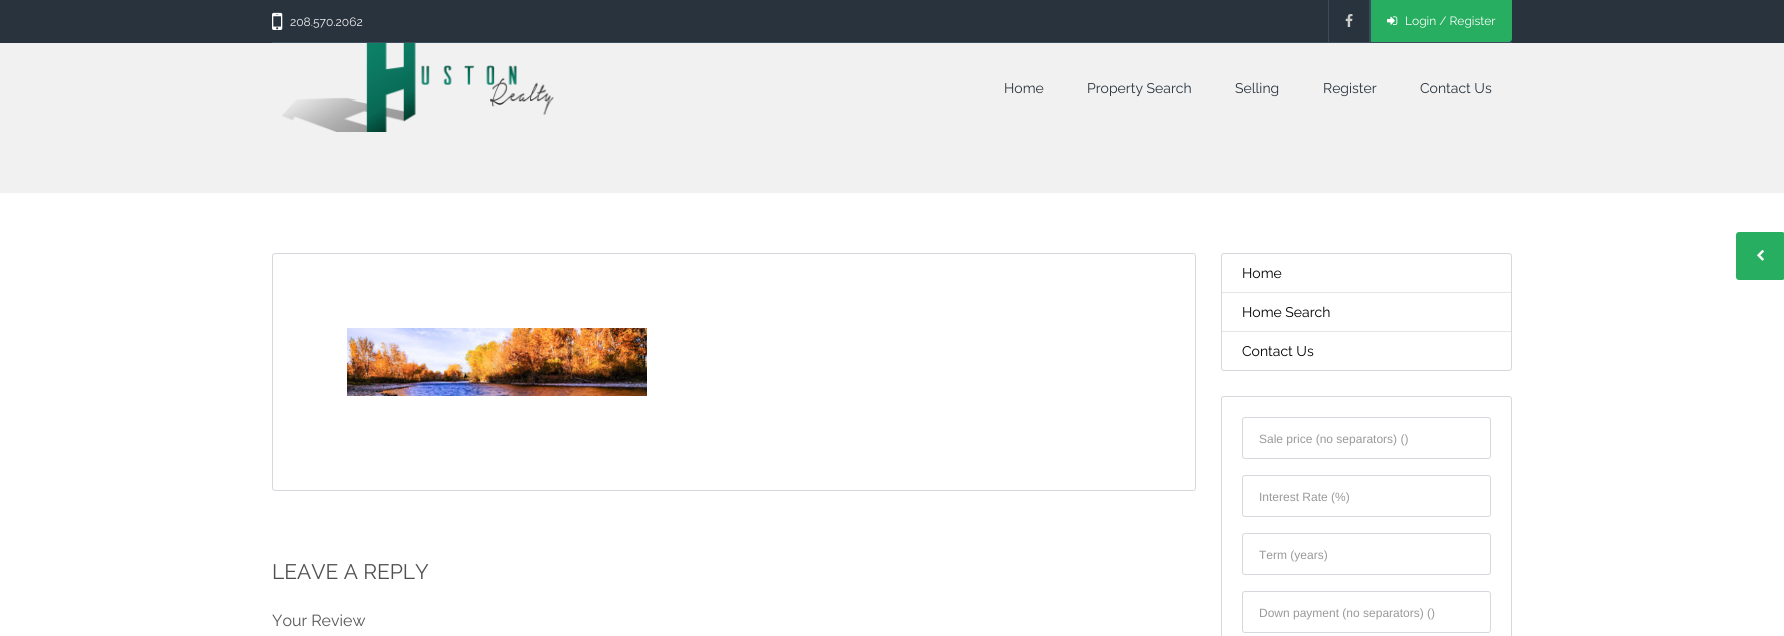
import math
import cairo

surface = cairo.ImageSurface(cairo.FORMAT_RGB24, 1784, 636)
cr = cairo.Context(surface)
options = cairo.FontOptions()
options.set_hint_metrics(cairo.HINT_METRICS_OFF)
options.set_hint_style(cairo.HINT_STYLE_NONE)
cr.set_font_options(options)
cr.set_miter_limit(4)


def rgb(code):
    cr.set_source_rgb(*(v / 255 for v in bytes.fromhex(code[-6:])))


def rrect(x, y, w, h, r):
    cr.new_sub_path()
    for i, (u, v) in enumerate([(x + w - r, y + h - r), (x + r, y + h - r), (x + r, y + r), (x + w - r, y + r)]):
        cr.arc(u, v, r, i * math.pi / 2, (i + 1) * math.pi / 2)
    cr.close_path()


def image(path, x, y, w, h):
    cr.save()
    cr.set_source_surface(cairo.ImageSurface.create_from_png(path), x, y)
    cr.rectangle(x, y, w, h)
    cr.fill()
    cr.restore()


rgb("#ffffff")
cr.paint()
rgb("#29333d")
cr.rectangle(0, 0, 1784, 43)
cr.fill()
rgb("#3b4d5d")
cr.rectangle(272, 42, 1240, 1)
cr.fill()
image("img/1.png", 272, 12, 11, 18)
cr.rectangle(1369, 0, 1, 42)
cr.fill()
cr.rectangle(1328, 0, 1, 42)
cr.fill()
image("img/2.png", 1345, 14, 8, 13)
rgb("#27ae60")
cr.new_path()
cr.move_to(1370, 0)
cr.line_to(1512, 0)
cr.line_to(1512, 39)
cr.curve_to(1512, 40.5, 1510.5, 42, 1509, 42)
cr.line_to(1370, 42)
cr.close_path()
cr.fill()
rgb("#3b4d5d")
cr.rectangle(1370, 0, 1, 42)
cr.fill()
image("img/3.png", 1387, 16, 11, 9)
rgb("#f1f1f1")
cr.rectangle(0, 43, 1784, 150)
cr.fill()
image("img/4.png", 282, 43, 272, 89)
rgb("#27ae60")
rrect(1736, 232, 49, 48, 3)
cr.fill()
image("img/5.png", 1757, 249, 7, 12)
rrect(272.5, 253.5, 923, 237, 2.5)
rgb("#d5d9dd")
cr.set_line_width(1)
cr.stroke()
image("img/6.png", 347, 328, 300, 68)
rrect(1221.5, 253.5, 290, 117, 2.5)
cr.stroke()
rgb("#e6e6e6")
cr.rectangle(1222, 292, 289, 1)
cr.fill()
cr.rectangle(1222, 331, 289, 1)
cr.fill()
rrect(1221.5, 396.5, 290, 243, 2.5)
rgb("#d5d9dd")
cr.stroke()
rrect(1242.5, 417.5, 248, 41, 2.5)
cr.stroke()
rrect(1242.5, 475.5, 248, 41, 2.5)
cr.stroke()
rrect(1242.5, 533.5, 248, 41, 2.5)
cr.stroke()
rrect(1242.5, 591.5, 248, 41, 2.5)
cr.stroke()
cr.select_font_face("Raleway")
cr.set_font_size(12)
rgb("#efefef")
cr.move_to(290, 26)
cr.show_text("208.570.2062")
rgb("#ffffff")
cr.move_to(1405, 25)
cr.show_text("Login / Register")
cr.set_font_size(14)
rgb("#29333d")
for x, y, s in [
    (1004, 93, "Home"),
    (1087, 93, "Property Search"),
    (1235, 93, "Selling"),
    (1323, 93, "Register"),
    (1420, 93, "Contact Us"),
]:
    cr.move_to(x, y)
    cr.show_text(s)
cr.set_font_size(21)
rgb("#4f4f4f")
cr.move_to(272, 579)
cr.show_text("LEAVE A REPLY")
cr.set_font_size(16)
rgb("#555555")
cr.move_to(272, 626)
cr.show_text("Your Review")
cr.set_font_size(14)
rgb("#000000")
for x, y, s in [
    (1242, 278, "Home"),
    (1242, 317, "Home Search"),
    (1242, 356, "Contact Us"),
]:
    cr.move_to(x, y)
    cr.show_text(s)
cr.select_font_face("Liberation Sans")
cr.set_font_size(12)
rgb("#999999")
for x, y, s in [
    (1259, 443, "Sale price (no separators) ()"),
    (1259, 501, "Interest Rate (%)"),
    (1259, 559, "Term (years)"),
    (1259, 617, "Down payment (no separators) ()"),
]:
    cr.move_to(x, y)
    cr.show_text(s)
surface.write_to_png("page.png")
